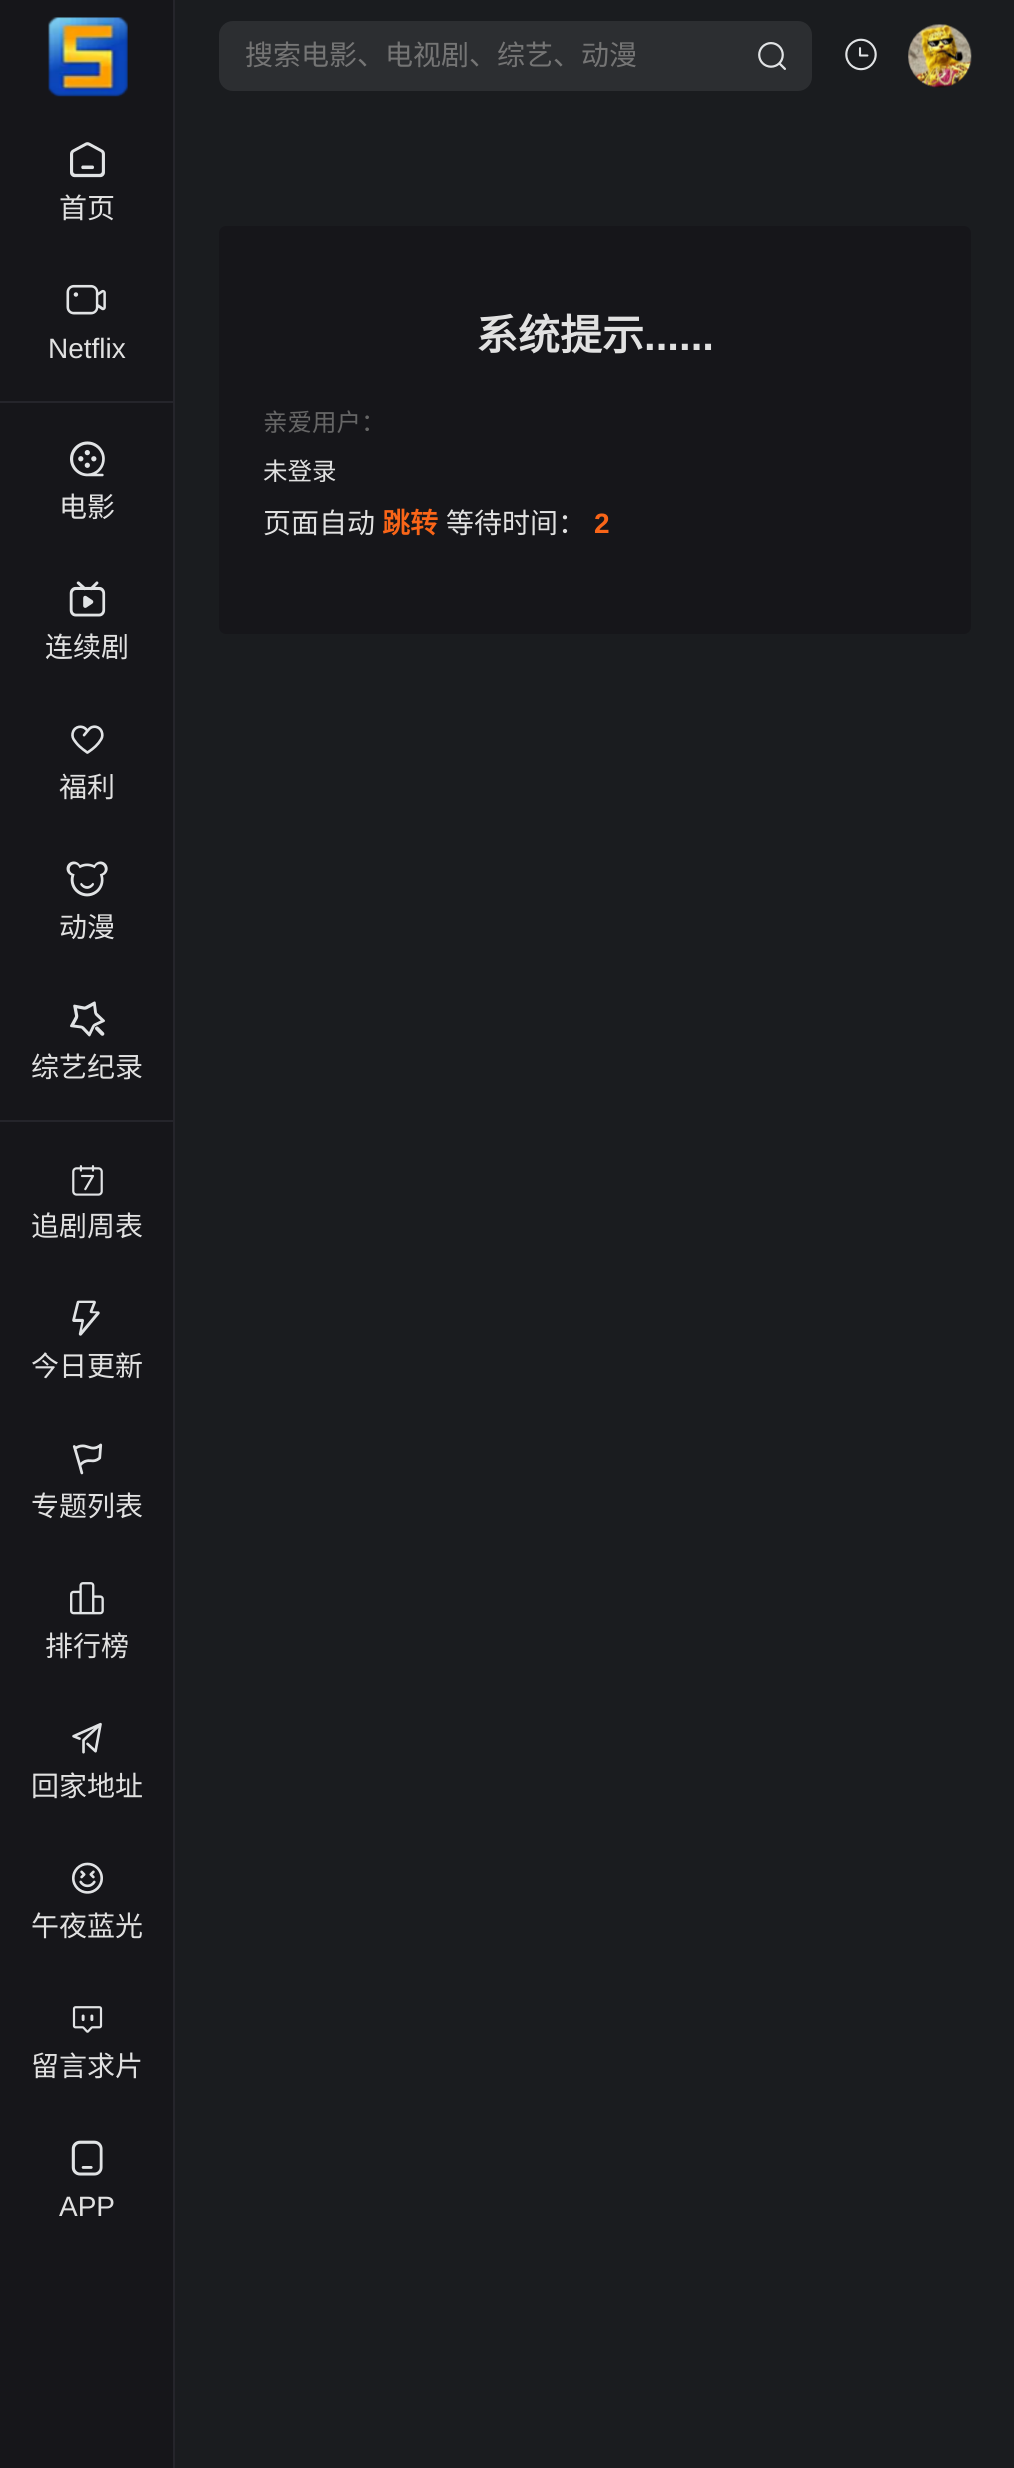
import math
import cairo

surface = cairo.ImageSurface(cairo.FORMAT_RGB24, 1014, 2468)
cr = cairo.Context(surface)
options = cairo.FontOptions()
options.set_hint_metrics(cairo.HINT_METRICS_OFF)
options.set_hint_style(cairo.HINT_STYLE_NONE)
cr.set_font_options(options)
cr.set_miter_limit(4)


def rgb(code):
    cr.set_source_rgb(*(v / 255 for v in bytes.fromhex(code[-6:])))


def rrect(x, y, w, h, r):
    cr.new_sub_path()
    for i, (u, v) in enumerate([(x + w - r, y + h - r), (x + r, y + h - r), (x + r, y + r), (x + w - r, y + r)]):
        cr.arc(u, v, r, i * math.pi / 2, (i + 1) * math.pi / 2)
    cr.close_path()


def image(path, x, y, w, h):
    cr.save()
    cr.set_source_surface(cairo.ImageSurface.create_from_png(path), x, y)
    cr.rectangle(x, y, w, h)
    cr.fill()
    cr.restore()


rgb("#1a1c1f")
cr.paint()
rgb("#16161a")
cr.rectangle(0, 0, 173, 2468)
cr.fill()
image("img/1.png", 48, 17, 80, 80)
rgb("#2c2e31")
rrect(219, 21, 593, 70, 14)
cr.fill()
image("img/2.png", 758, 42, 28, 28)
image("img/3.png", 845, 38, 32, 33)
image("img/4.png", 908, 24, 64, 64)
rgb("#25252b")
cr.rectangle(173, 0, 2, 2468)
cr.fill()
image("img/5.png", 70, 142, 35, 36)
image("img/6.png", 66, 284, 40, 31)
cr.rectangle(0, 401, 173, 2)
cr.fill()
image("img/7.png", 70, 441, 35, 36)
image("img/8.png", 69, 581, 37, 36)
image("img/9.png", 71, 725, 33, 29)
image("img/10.png", 66, 861, 42, 36)
image("img/11.png", 70, 1001, 35, 36)
cr.rectangle(0, 1120, 173, 2)
cr.fill()
image("img/12.png", 72, 1165, 31, 31)
image("img/13.png", 72, 1300, 28, 36)
image("img/14.png", 72, 1443, 31, 32)
image("img/15.png", 70, 1582, 34, 33)
image("img/16.png", 72, 1722, 30, 32)
image("img/17.png", 72, 1862, 31, 32)
image("img/18.png", 72, 2006, 31, 27)
image("img/19.png", 71, 2140, 32, 36)
rgb("#16161a")
rrect(219, 226, 752, 408, 7)
cr.fill()
cr.select_font_face("Noto Sans CJK SC")
cr.set_font_size(28)
rgb("#757575")
cr.move_to(245, 65)
cr.show_text("搜索电影、电视剧、综艺、动漫")
rgb("#e1e1e1")
cr.move_to(59, 218)
cr.show_text("首页")
cr.select_font_face("Liberation Sans")
cr.move_to(48, 358)
cr.show_text("Netflix")
cr.select_font_face("Noto Sans CJK SC")
for x, y, s in [
    (59, 517, "电影"),
    (45, 657, "连续剧"),
    (59, 797, "福利"),
    (59, 937, "动漫"),
    (31, 1077, "综艺纪录"),
    (31, 1236, "追剧周表"),
    (31, 1376, "今日更新"),
    (31, 1516, "专题列表"),
    (45, 1656, "排行榜"),
    (31, 1796, "回家地址"),
    (31, 1936, "午夜蓝光"),
    (31, 2076, "留言求片"),
]:
    cr.move_to(x, y)
    cr.show_text(s)
cr.select_font_face("Liberation Sans")
cr.move_to(59, 2216)
cr.show_text("APP")
cr.select_font_face("Noto Sans CJK SC", cairo.FONT_SLANT_NORMAL, cairo.FONT_WEIGHT_BOLD)
cr.set_font_size(42)
cr.move_to(476, 350)
cr.show_text("系统提示")
cr.select_font_face("Liberation Sans", cairo.FONT_SLANT_NORMAL, cairo.FONT_WEIGHT_BOLD)
cr.move_to(644, 350)
cr.show_text("......")
cr.select_font_face("Noto Sans CJK SC")
cr.set_font_size(24.5)
rgb("#666666")
cr.move_to(263, 431)
cr.show_text("亲爱用户：")
rgb("#e1e1e1")
cr.move_to(263, 480)
cr.show_text("未登录")
cr.set_font_size(28)
cr.move_to(263, 533)
cr.show_text("页面自动")
cr.select_font_face("Noto Sans CJK SC", cairo.FONT_SLANT_NORMAL, cairo.FONT_WEIGHT_BOLD)
rgb("#f96518")
cr.move_to(382, 533)
cr.show_text("跳转")
cr.select_font_face("Noto Sans CJK SC")
rgb("#e1e1e1")
cr.move_to(446, 533)
cr.show_text("等待时间：")
cr.select_font_face("Liberation Sans", cairo.FONT_SLANT_NORMAL, cairo.FONT_WEIGHT_BOLD)
rgb("#f96518")
cr.move_to(594, 533)
cr.show_text("2")
surface.write_to_png("page.png")
